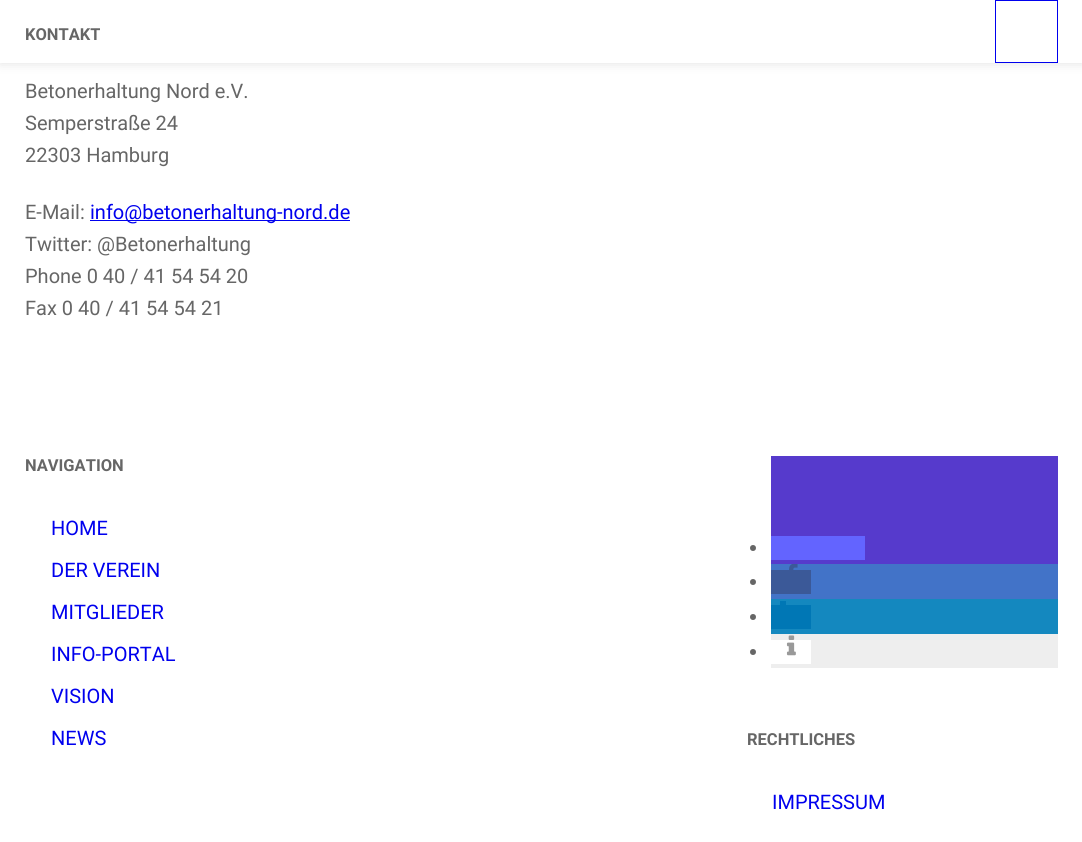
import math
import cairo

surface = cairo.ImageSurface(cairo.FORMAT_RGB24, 1082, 842)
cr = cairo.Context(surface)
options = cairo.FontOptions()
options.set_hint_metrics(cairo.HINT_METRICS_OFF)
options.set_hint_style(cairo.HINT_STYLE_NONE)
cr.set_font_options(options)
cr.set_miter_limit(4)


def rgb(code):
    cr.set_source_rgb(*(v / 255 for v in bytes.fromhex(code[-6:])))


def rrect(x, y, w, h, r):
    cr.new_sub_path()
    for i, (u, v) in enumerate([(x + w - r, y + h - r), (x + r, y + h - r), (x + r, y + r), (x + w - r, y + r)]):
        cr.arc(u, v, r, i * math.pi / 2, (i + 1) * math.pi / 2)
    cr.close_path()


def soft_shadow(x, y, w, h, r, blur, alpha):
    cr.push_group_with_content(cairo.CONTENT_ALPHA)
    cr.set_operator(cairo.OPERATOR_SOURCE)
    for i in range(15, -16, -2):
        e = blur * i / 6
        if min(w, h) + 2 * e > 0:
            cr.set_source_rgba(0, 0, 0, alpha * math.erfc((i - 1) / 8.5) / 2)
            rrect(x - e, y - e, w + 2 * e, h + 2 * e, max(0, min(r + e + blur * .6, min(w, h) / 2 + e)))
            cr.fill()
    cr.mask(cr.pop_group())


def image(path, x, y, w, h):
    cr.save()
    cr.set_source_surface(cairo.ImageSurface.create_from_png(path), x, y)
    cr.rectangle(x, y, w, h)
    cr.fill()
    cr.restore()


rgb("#ffffff")
cr.paint()
cr.save()
cr.set_fill_rule(cairo.FILL_RULE_EVEN_ODD)
cr.new_path()
cr.move_to(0, 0)
cr.line_to(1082, 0)
cr.line_to(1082, 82)
cr.line_to(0, 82)
cr.close_path()
cr.move_to(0, 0)
cr.line_to(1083, 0)
cr.line_to(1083, 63)
cr.line_to(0, 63)
cr.close_path()
cr.clip()
rgb("#000000")
soft_shadow(0, 0, 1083, 63, 0, 6, 0.12)
cr.restore()
cr.rectangle(995.5, 0.5, 62, 62)
rgb("#0000ee")
cr.set_line_width(1)
cr.stroke()
cr.rectangle(90, 220, 260, 1)
cr.fill()
rgb("#563acc")
cr.rectangle(771, 456, 287, 108)
cr.fill()
rgb("#666666")
cr.arc(753, 548, 3, 0, 2 * math.pi)
cr.fill()
rgb("#6364ff")
cr.rectangle(771, 536, 94, 24)
cr.fill()
rgb("#4273c8")
cr.rectangle(771, 564, 287, 35)
cr.fill()
image("img/1.png", 789, 564, 9, 6)
rgb("#666666")
cr.arc(753, 582, 3, 0, 2 * math.pi)
cr.fill()
for x, y, w, h, color in [
    (771, 570, 40, 24, "#3b5998"),
    (771, 599, 287, 35, "#1488bf"),
    (780, 601, 6, 4, "#0077b5"),
]:
    rgb(color)
    cr.rectangle(x, y, w, h)
    cr.fill()
rgb("#666666")
cr.arc(753, 617, 3, 0, 2 * math.pi)
cr.fill()
for x, y, w, h, color in [
    (771, 605, 40, 24, "#0077b5"),
    (771, 634, 287, 34, "#eeeeee"),
    (771, 640, 40, 24, "#ffffff"),
]:
    rgb(color)
    cr.rectangle(x, y, w, h)
    cr.fill()
image("img/2.png", 786, 635, 10, 21)
rgb("#666666")
cr.arc(753, 652, 3, 0, 2 * math.pi)
cr.fill()
cr.select_font_face("Roboto", cairo.FONT_SLANT_NORMAL, cairo.FONT_WEIGHT_BOLD)
cr.set_font_size(16.5)
cr.move_to(25, 40)
cr.show_text("KONTAKT")
cr.select_font_face("Roboto")
cr.set_font_size(20)
for x, y, s in [
    (25, 98, "Betonerhaltung Nord e.V."),
    (25, 130, "Semperstraße 24"),
    (25, 162, "22303 Hamburg"),
    (25, 219, "E-Mail:"),
]:
    cr.move_to(x, y)
    cr.show_text(s)
rgb("#0000ee")
cr.move_to(90, 219)
cr.show_text("info@betonerhaltung-nord.de")
rgb("#666666")
for x, y, s in [
    (25, 251, "Twitter: @Betonerhaltung"),
    (25, 283, "Phone 0 40 / 41 54 54 20"),
    (25, 315, "Fax 0 40 / 41 54 54 21"),
]:
    cr.move_to(x, y)
    cr.show_text(s)
cr.select_font_face("Roboto", cairo.FONT_SLANT_NORMAL, cairo.FONT_WEIGHT_BOLD)
cr.set_font_size(16.5)
cr.move_to(25, 471)
cr.show_text("NAVIGATION")
cr.select_font_face("Roboto")
cr.set_font_size(20)
rgb("#0000ee")
for x, y, s in [
    (51, 535, "HOME"),
    (51, 577, "DER VEREIN"),
    (51, 619, "MITGLIEDER"),
    (51, 661, "INFO-PORTAL"),
    (51, 703, "VISION"),
    (51, 745, "NEWS"),
]:
    cr.move_to(x, y)
    cr.show_text(s)
cr.select_font_face("Roboto", cairo.FONT_SLANT_NORMAL, cairo.FONT_WEIGHT_BOLD)
cr.set_font_size(16.5)
rgb("#666666")
cr.move_to(747, 745)
cr.show_text("RECHTLICHES")
cr.select_font_face("Roboto")
cr.set_font_size(20)
rgb("#0000ee")
cr.move_to(772, 809)
cr.show_text("IMPRESSUM")
surface.write_to_png("page.png")
